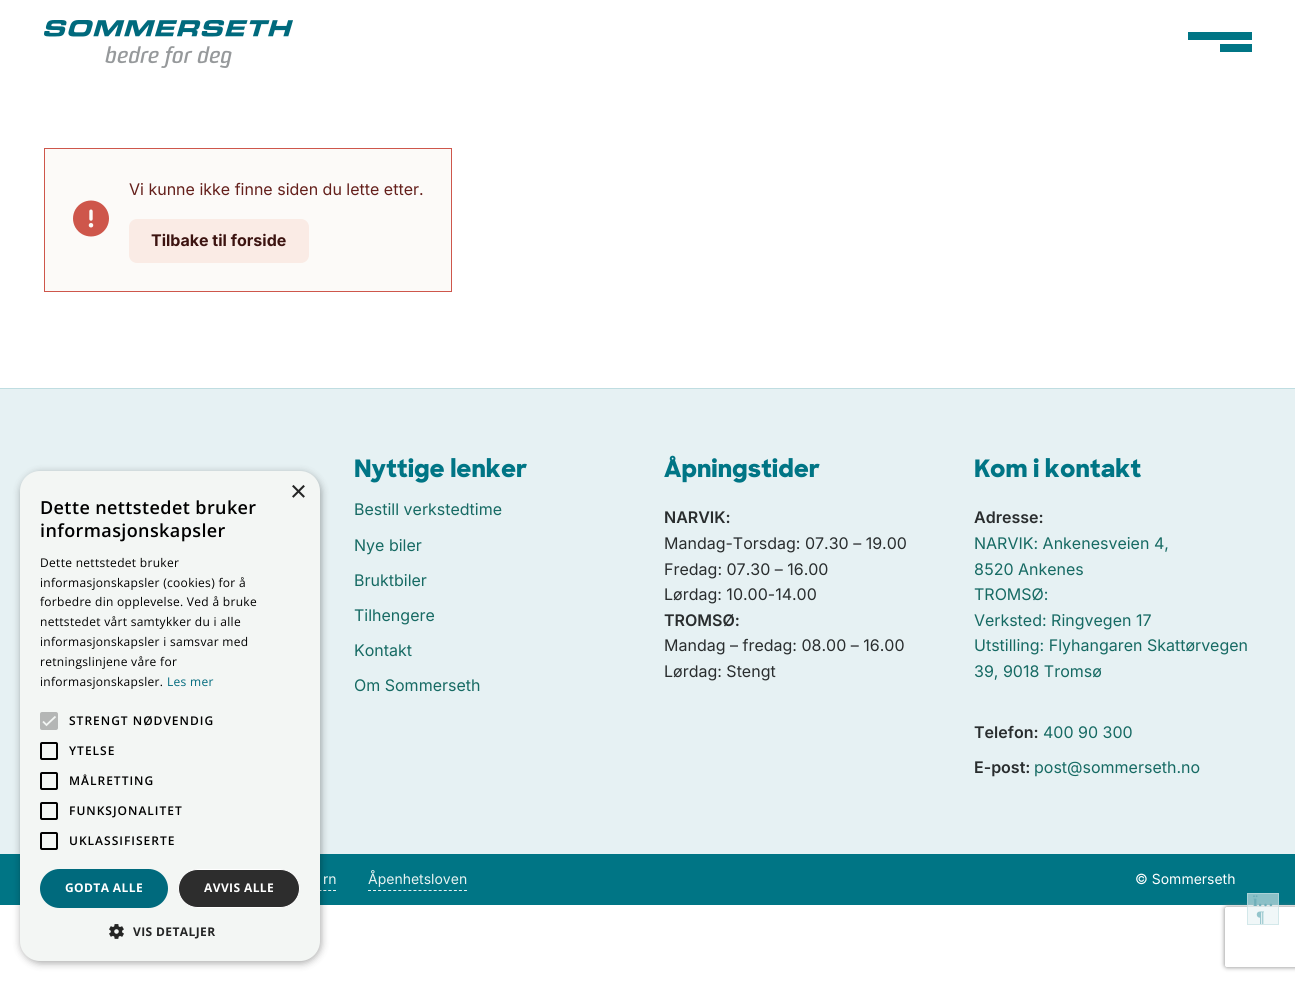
import math
import cairo

surface = cairo.ImageSurface(cairo.FORMAT_RGB24, 1295, 981)
cr = cairo.Context(surface)
options = cairo.FontOptions()
options.set_hint_metrics(cairo.HINT_METRICS_OFF)
options.set_hint_style(cairo.HINT_STYLE_NONE)
cr.set_font_options(options)
cr.set_miter_limit(4)


def rgb(code):
    cr.set_source_rgb(*(v / 255 for v in bytes.fromhex(code[-6:])))


def tracked(x, y, s, letter, word):
    cr.move_to(x, y)
    for ch in s:
        cr.show_text(ch)
        cr.rel_move_to(letter + word * (ch == ' '), 0)


def rrect(x, y, w, h, r):
    cr.new_sub_path()
    for i, (u, v) in enumerate([(x + w - r, y + h - r), (x + r, y + h - r), (x + r, y + r), (x + w - r, y + r)]):
        cr.arc(u, v, r, i * math.pi / 2, (i + 1) * math.pi / 2)
    cr.close_path()


def soft_shadow(x, y, w, h, r, blur, alpha):
    cr.push_group_with_content(cairo.CONTENT_ALPHA)
    cr.set_operator(cairo.OPERATOR_SOURCE)
    for i in range(15, -16, -2):
        e = blur * i / 6
        if min(w, h) + 2 * e > 0:
            cr.set_source_rgba(0, 0, 0, alpha * math.erfc((i - 1) / 8.5) / 2)
            rrect(x - e, y - e, w + 2 * e, h + 2 * e, max(0, min(r + e + blur * .6, min(w, h) / 2 + e)))
            cr.fill()
    cr.mask(cr.pop_group())


def image(path, x, y, w, h):
    cr.save()
    cr.set_source_surface(cairo.ImageSurface.create_from_png(path), x, y)
    cr.rectangle(x, y, w, h)
    cr.fill()
    cr.restore()


rgb("#ffffff")
cr.paint()
image("img/1.png", 44, 20, 249, 48)
rgb("#007585")
cr.rectangle(1188, 32, 64, 8)
cr.fill()
cr.rectangle(1220, 44, 32, 8)
cr.fill()
rgb("#fcfaf8")
cr.rectangle(44.5, 148.5, 407, 143)
cr.fill_preserve()
rgb("#ce564b")
cr.set_line_width(1)
cr.stroke()
image("img/2.png", 73, 200, 36, 37)
rgb("#faebe5")
rrect(129, 219, 180, 44, 8)
cr.fill()
rgb("#e6f1f3")
cr.rectangle(0, 389, 1295, 465)
cr.fill()
rgb("#007585")
cr.rectangle(0, 854, 1295, 51)
cr.fill()
cr.new_path()
cr.move_to(260, 890.5)
cr.line_to(336, 890.5)
rgb("#e7f3f2")
cr.set_dash([3, 1.87])
cr.stroke()
rgb("#000000")
soft_shadow(21, 473, 300, 490, 20, 4, 0.35)
rgb("#f3f6f4")
rrect(20, 471, 300, 490, 20)
cr.fill()
rgb("#b4b6b5")
rrect(40, 712, 18, 18, 2)
cr.fill()
cr.new_path()
cr.move_to(43, 721.5)
cr.line_to(46.5, 725)
cr.line_to(55.5, 716.5)
rgb("#f3f6f4")
cr.set_line_width(1.8)
cr.set_dash([])
cr.stroke()
rrect(41, 743, 16, 16, 1)
rgb("#000000")
cr.set_line_width(2)
cr.stroke()
rrect(41, 773, 16, 16, 1)
cr.stroke()
rrect(41, 803, 16, 16, 1)
cr.stroke()
rrect(41, 833, 16, 16, 1)
cr.stroke()
rgb("#006a7d")
rrect(40, 869, 128, 39, 19.5)
cr.fill()
rgb("#2d2d2d")
rrect(178.5, 869.5, 121, 38, 19)
cr.fill_preserve()
rgb("#ffffff")
cr.set_line_width(1)
cr.stroke()
image("img/3.png", 109, 924, 15, 15)
rgb("#bfdde1")
cr.rectangle(0, 388, 1295, 1)
cr.fill()
cr.new_path()
cr.move_to(368, 890.5)
cr.line_to(467, 890.5)
rgb("#e7f3f2")
cr.set_dash([3, 2.05])
cr.stroke()
cr.save()
cr.set_fill_rule(cairo.FILL_RULE_EVEN_ODD)
cr.new_path()
cr.move_to(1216, 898)
cr.line_to(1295, 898)
cr.line_to(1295, 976)
cr.line_to(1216, 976)
cr.close_path()
cr.move_to(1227, 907)
cr.line_to(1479, 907)
cr.curve_to(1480, 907, 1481, 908, 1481, 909)
cr.line_to(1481, 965)
cr.curve_to(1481, 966, 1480, 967, 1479, 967)
cr.line_to(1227, 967)
cr.curve_to(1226, 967, 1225, 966, 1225, 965)
cr.line_to(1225, 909)
cr.curve_to(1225, 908, 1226, 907, 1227, 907)
cr.close_path()
cr.clip()
rgb("#808080")
soft_shadow(1225, 907, 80, 60, 2, 2.5, 1)
cr.restore()
cr.set_source_rgba(0.902, 0.945, 0.953, 0.6)
cr.rectangle(1247, 893, 32, 32)
cr.fill()
cr.rectangle(1247.5, 893.5, 31, 31)
cr.set_source_rgba(0.749, 0.867, 0.882, 0.6)
cr.set_dash([])
cr.stroke()
cr.select_font_face("Inter")
cr.set_font_size(16)
rgb("#641f1b")
cr.move_to(129, 195)
cr.show_text("Vi kunne ikke finne siden du lette etter.")
cr.select_font_face("Inter", cairo.FONT_SLANT_NORMAL, cairo.FONT_WEIGHT_BOLD)
rgb("#3c1310")
cr.move_to(151, 246)
cr.show_text("Tilbake til forside")
cr.select_font_face("Liberation Sans")
cr.set_font_size(29)
rgb("#242525")
cr.move_to(290, 501)
cr.show_text("×")
cr.select_font_face("Open Sans SemiBold")
cr.set_font_size(18)
rgb("#000000")
tracked(40, 514, "Dette nettstedet bruker", 0.4, 0)
tracked(40, 537, "informasjonskapsler", 0.4, 0)
cr.select_font_face("Open Sans")
cr.set_font_size(12)
for x, y, s in [
    (40, 567, "Dette nettstedet bruker"),
    (40, 587, "informasjonskapsler (cookies) for å"),
    (40, 606, "forbedre din opplevelse. Ved å bruke"),
    (40, 626, "nettstedet vårt samtykker du i alle"),
    (40, 646, "informasjonskapsler i samsvar med"),
    (40, 666, "retningslinjene våre for"),
    (40, 686, "informasjonskapsler."),
]:
    tracked(x, y, s, 0.3, 0)
rgb("#006a7d")
tracked(167, 686, "Les mer", 0.3, 0)
cr.select_font_face("Open Sans SemiBold")
rgb("#000000")
for x, y, s in [
    (69, 725, "STRENGT NØDVENDIG"),
    (69, 755, "YTELSE"),
    (69, 785, "MÅLRETTING"),
    (69, 815, "FUNKSJONALITET"),
    (69, 845, "UKLASSIFISERTE"),
]:
    tracked(x, y, s, 1, 0)
cr.select_font_face("Open Sans", cairo.FONT_SLANT_NORMAL, cairo.FONT_WEIGHT_BOLD)
rgb("#ffffff")
tracked(65, 892, "GODTA ALLE", 0.4, 0)
tracked(204, 892, "AVVIS ALLE", 0.4, 0)
rgb("#242525")
tracked(133, 936, "VIS DETALJER", 0.4, 0)
cr.select_font_face("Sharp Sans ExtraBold")
cr.set_font_size(24)
rgb("#007585")
cr.move_to(354, 477)
cr.show_text("Nyttige lenker")
cr.select_font_face("Inter")
cr.set_font_size(16)
rgb("#166a63")
for x, y, s in [
    (354, 515, "Bestill verkstedtime"),
    (354, 551, "Nye biler"),
    (354, 586, "Bruktbiler"),
    (354, 621, "Tilhengere"),
    (354, 656, "Kontakt"),
    (354, 691, "Om Sommerseth"),
]:
    cr.move_to(x, y)
    cr.show_text(s)
cr.select_font_face("Sharp Sans ExtraBold")
cr.set_font_size(24)
rgb("#007585")
cr.move_to(664, 477)
cr.show_text("Åpningstider")
cr.select_font_face("Inter SemiBold")
cr.set_font_size(16)
rgb("#292d2e")
cr.move_to(664, 523)
cr.show_text("NARVIK:")
cr.select_font_face("Inter")
for x, y, s in [
    (664, 549, "Mandag-Torsdag: 07.30 – 19.00"),
    (664, 575, "Fredag: 07.30 – 16.00"),
    (664, 600, "Lørdag: 10.00-14.00"),
]:
    cr.move_to(x, y)
    cr.show_text(s)
cr.select_font_face("Inter SemiBold")
cr.move_to(664, 626)
cr.show_text("TROMSØ:")
cr.select_font_face("Inter")
cr.move_to(664, 651)
cr.show_text("Mandag – fredag: 08.00 – 16.00")
cr.move_to(664, 677)
cr.show_text("Lørdag: Stengt")
cr.select_font_face("Sharp Sans ExtraBold")
cr.set_font_size(24)
rgb("#007585")
cr.move_to(974, 477)
cr.show_text("Kom i kontakt")
cr.select_font_face("Inter SemiBold")
cr.set_font_size(16)
rgb("#292d2e")
cr.move_to(974, 523)
cr.show_text("Adresse:")
cr.select_font_face("Inter")
rgb("#166a63")
for x, y, s in [
    (974, 549, "NARVIK: Ankenesveien 4,"),
    (974, 575, "8520 Ankenes"),
    (974, 600, "TROMSØ:"),
    (974, 626, "Verksted: Ringvegen 17"),
    (974, 651, "Utstilling: Flyhangaren Skattørvegen"),
    (974, 677, "39, 9018 Tromsø"),
]:
    cr.move_to(x, y)
    cr.show_text(s)
cr.select_font_face("Inter SemiBold")
rgb("#292d2e")
cr.move_to(974, 738)
cr.show_text("Telefon:")
cr.select_font_face("Inter")
rgb("#166a63")
cr.move_to(1043, 738)
cr.show_text("400 90 300")
cr.select_font_face("Inter SemiBold")
rgb("#292d2e")
cr.move_to(974, 773)
cr.show_text("E-post:")
cr.select_font_face("Inter")
rgb("#166a63")
cr.move_to(1034, 773)
cr.show_text("post@sommerseth.no")
cr.set_font_size(14)
rgb("#e7f3f2")
cr.move_to(323, 884)
cr.show_text("rn")
cr.move_to(368, 884)
cr.show_text("Åpenhetsloven")
rgb("#ffffff")
cr.move_to(1135, 884)
cr.show_text("© Sommerseth")
cr.select_font_face("Liberation Serif", cairo.FONT_SLANT_NORMAL, cairo.FONT_WEIGHT_BOLD)
cr.set_font_size(16)
rgb("#6fafb9")
cr.move_to(1253, 906)
cr.show_text("ï…")
rgb("#94c5cc")
cr.move_to(1256, 922)
cr.show_text("¶")
surface.write_to_png("page.png")
